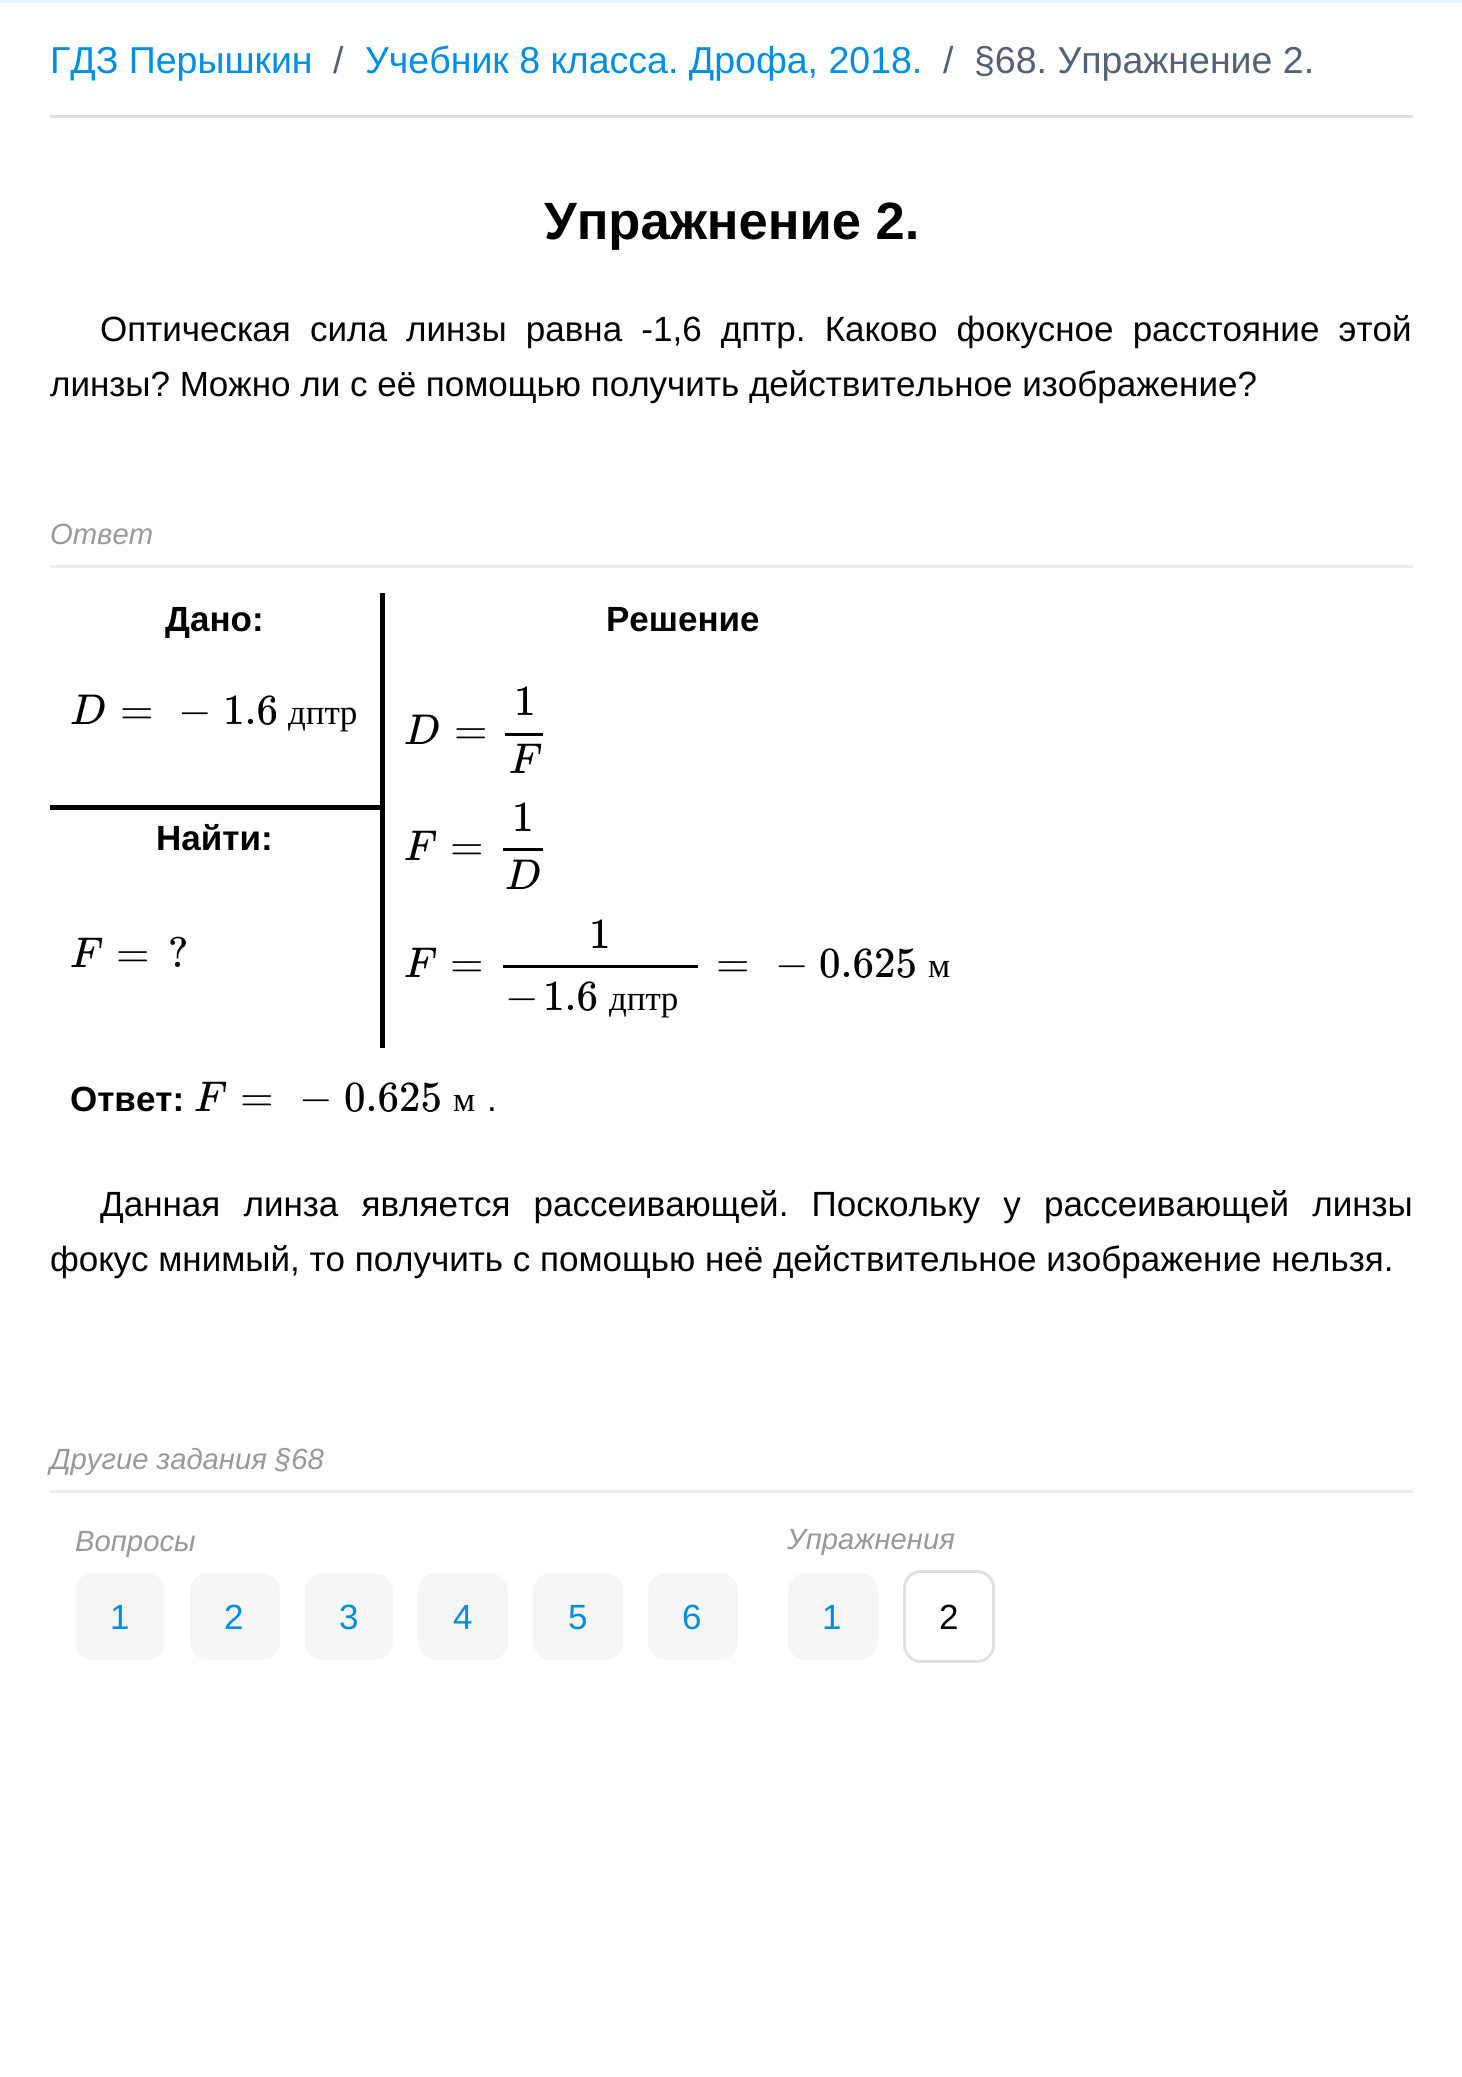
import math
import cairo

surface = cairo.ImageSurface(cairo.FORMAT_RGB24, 1462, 2077)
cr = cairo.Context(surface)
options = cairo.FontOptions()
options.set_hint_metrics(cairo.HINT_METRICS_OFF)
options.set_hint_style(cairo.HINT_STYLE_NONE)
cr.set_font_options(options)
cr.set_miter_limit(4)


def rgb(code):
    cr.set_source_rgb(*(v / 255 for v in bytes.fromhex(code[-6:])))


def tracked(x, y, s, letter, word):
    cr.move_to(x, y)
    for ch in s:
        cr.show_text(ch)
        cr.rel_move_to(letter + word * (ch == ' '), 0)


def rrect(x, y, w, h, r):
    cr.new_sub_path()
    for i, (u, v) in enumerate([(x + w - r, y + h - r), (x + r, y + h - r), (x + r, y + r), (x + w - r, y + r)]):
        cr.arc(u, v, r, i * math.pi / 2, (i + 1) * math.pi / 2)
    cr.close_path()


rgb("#ffffff")
cr.paint()
for x, y, w, h, color in [
    (0, 0, 1462, 3, "#ecf3fa"),
    (50, 115, 1363, 3, "#e0e0e0"),
    (50, 565, 1363, 3, "#ededed"),
    (380, 593, 5, 455, "#000000"),
    (50, 805, 330, 5, "#000000"),
    (505, 733, 38, 3, "#000000"),
    (503, 848, 40, 3, "#000000"),
    (503, 965, 195, 3, "#000000"),
    (50, 1490, 1363, 3, "#ededed"),
]:
    rgb(color)
    cr.rectangle(x, y, w, h)
    cr.fill()
rgb("#f6f6f6")
rrect(75, 1573, 90, 87, 18)
cr.fill()
rrect(190, 1573, 90, 87, 18)
cr.fill()
rrect(305, 1573, 88, 87, 18)
cr.fill()
rrect(418, 1573, 90, 87, 18)
cr.fill()
rrect(533, 1573, 90, 87, 18)
cr.fill()
rrect(648, 1573, 90, 87, 18)
cr.fill()
rrect(788, 1573, 90, 87, 18)
cr.fill()
rrect(904.5, 1571.5, 89, 90, 16.5)
rgb("#e0e0e0")
cr.set_line_width(3)
cr.stroke()
cr.select_font_face("Liberation Sans")
cr.set_font_size(37.5)
rgb("#008ee4")
cr.move_to(50, 73)
cr.show_text("ГДЗ Перышкин")
rgb("#546172")
cr.move_to(333, 73)
cr.show_text("/")
rgb("#008ee4")
cr.move_to(365, 73)
cr.show_text("Учебник 8 класса. Дрофа, 2018.")
rgb("#546172")
cr.move_to(943, 73)
cr.show_text("/")
cr.move_to(974, 73)
cr.show_text("§68. Упражнение 2.")
cr.select_font_face("Liberation Sans", cairo.FONT_SLANT_NORMAL, cairo.FONT_WEIGHT_BOLD)
cr.set_font_size(52.5)
rgb("#000000")
cr.move_to(544, 239)
cr.show_text("Упражнение 2.")
cr.select_font_face("Liberation Sans")
cr.set_font_size(35)
tracked(100, 341, "Оптическая сила линзы равна -1,6 дптр. Каково фокусное расстояние этой", 0, 9.5)
cr.move_to(50, 396)
cr.show_text("линзы? Можно ли с её помощью получить действительное изображение?")
cr.select_font_face("Liberation Sans", cairo.FONT_SLANT_ITALIC)
cr.set_font_size(29.25)
rgb("#999999")
cr.move_to(50, 544)
cr.show_text("Ответ")
cr.select_font_face("Liberation Sans", cairo.FONT_SLANT_NORMAL, cairo.FONT_WEIGHT_BOLD)
cr.set_font_size(35)
rgb("#000000")
cr.move_to(165, 631)
cr.show_text("Дано:")
cr.move_to(606, 631)
cr.show_text("Решение")
cr.select_font_face("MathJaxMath", cairo.FONT_SLANT_ITALIC)
cr.set_font_size(43)
cr.move_to(70, 724)
cr.show_text("D")
cr.select_font_face("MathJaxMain")
for x, y, s in [
    (120, 724, "="),
    (178, 724, "−"),
    (223, 724, "1.6"),
]:
    cr.move_to(x, y)
    cr.show_text(s)
cr.select_font_face("Liberation Serif")
cr.set_font_size(35)
cr.move_to(288, 724)
cr.show_text("дптр")
cr.select_font_face("MathJaxMath", cairo.FONT_SLANT_ITALIC)
cr.set_font_size(43)
cr.move_to(404, 744)
cr.show_text("D")
cr.select_font_face("MathJaxMain")
cr.move_to(454, 744)
cr.show_text("=")
cr.move_to(514, 715)
cr.show_text("1")
cr.select_font_face("MathJaxMath", cairo.FONT_SLANT_ITALIC)
cr.move_to(509, 773)
cr.show_text("F")
cr.move_to(404, 860)
cr.show_text("F")
cr.select_font_face("MathJaxMain")
cr.move_to(450, 860)
cr.show_text("=")
cr.move_to(512, 831)
cr.show_text("1")
cr.select_font_face("MathJaxMath", cairo.FONT_SLANT_ITALIC)
cr.move_to(505, 889)
cr.show_text("D")
cr.move_to(404, 977)
cr.show_text("F")
cr.select_font_face("MathJaxMain")
for x, y, s in [
    (450, 977, "="),
    (589, 948, "1"),
    (505, 1010, "−"),
    (543, 1010, "1.6"),
]:
    cr.move_to(x, y)
    cr.show_text(s)
cr.select_font_face("Liberation Serif")
cr.set_font_size(35)
cr.move_to(609, 1010)
cr.show_text("дптр")
cr.select_font_face("MathJaxMain")
cr.set_font_size(43)
for x, y, s in [
    (716, 977, "="),
    (775, 977, "−"),
    (819, 977, "0.625"),
]:
    cr.move_to(x, y)
    cr.show_text(s)
cr.select_font_face("Liberation Serif")
cr.set_font_size(35)
cr.move_to(928, 977)
cr.show_text("м")
cr.select_font_face("Liberation Sans", cairo.FONT_SLANT_NORMAL, cairo.FONT_WEIGHT_BOLD)
cr.move_to(156, 850)
cr.show_text("Найти:")
cr.select_font_face("MathJaxMath", cairo.FONT_SLANT_ITALIC)
cr.set_font_size(43)
cr.move_to(70, 967)
cr.show_text("F")
cr.select_font_face("MathJaxMain")
cr.move_to(116, 967)
cr.show_text("=")
cr.move_to(168, 967)
cr.show_text("?")
cr.select_font_face("Liberation Sans", cairo.FONT_SLANT_NORMAL, cairo.FONT_WEIGHT_BOLD)
cr.set_font_size(35)
cr.move_to(70, 1111)
cr.show_text("Ответ:")
cr.select_font_face("MathJaxMath", cairo.FONT_SLANT_ITALIC)
cr.set_font_size(43)
cr.move_to(194, 1111)
cr.show_text("F")
cr.select_font_face("MathJaxMain")
for x, y, s in [
    (240, 1111, "="),
    (299, 1111, "−"),
    (344, 1111, "0.625"),
]:
    cr.move_to(x, y)
    cr.show_text(s)
cr.select_font_face("Liberation Serif")
cr.set_font_size(35)
cr.move_to(453, 1111)
cr.show_text("м")
cr.select_font_face("Liberation Sans")
cr.move_to(487, 1111)
cr.show_text(".")
tracked(100, 1216, "Данная линза является рассеивающей. Поскольку у рассеивающей линзы", 0, 13.5)
cr.move_to(50, 1271)
cr.show_text("фокус мнимый, то получить с помощью неё действительное изображение нельзя.")
cr.select_font_face("Liberation Sans", cairo.FONT_SLANT_ITALIC)
cr.set_font_size(29.25)
rgb("#999999")
cr.move_to(50, 1469)
cr.show_text("Другие задания §68")
cr.move_to(75, 1551)
cr.show_text("Вопросы")
cr.select_font_face("Liberation Sans")
cr.set_font_size(35)
rgb("#008ee4")
for x, y, s in [
    (110, 1629, "1"),
    (224, 1629, "2"),
    (339, 1629, "3"),
    (453, 1629, "4"),
    (568, 1629, "5"),
    (682, 1629, "6"),
]:
    cr.move_to(x, y)
    cr.show_text(s)
cr.select_font_face("Liberation Sans", cairo.FONT_SLANT_ITALIC)
cr.set_font_size(29.25)
rgb("#999999")
cr.move_to(787, 1549)
cr.show_text("Упражнения")
cr.select_font_face("Liberation Sans")
cr.set_font_size(35)
rgb("#008ee4")
cr.move_to(822, 1629)
cr.show_text("1")
rgb("#000000")
cr.move_to(939, 1629)
cr.show_text("2")
surface.write_to_png("page.png")
